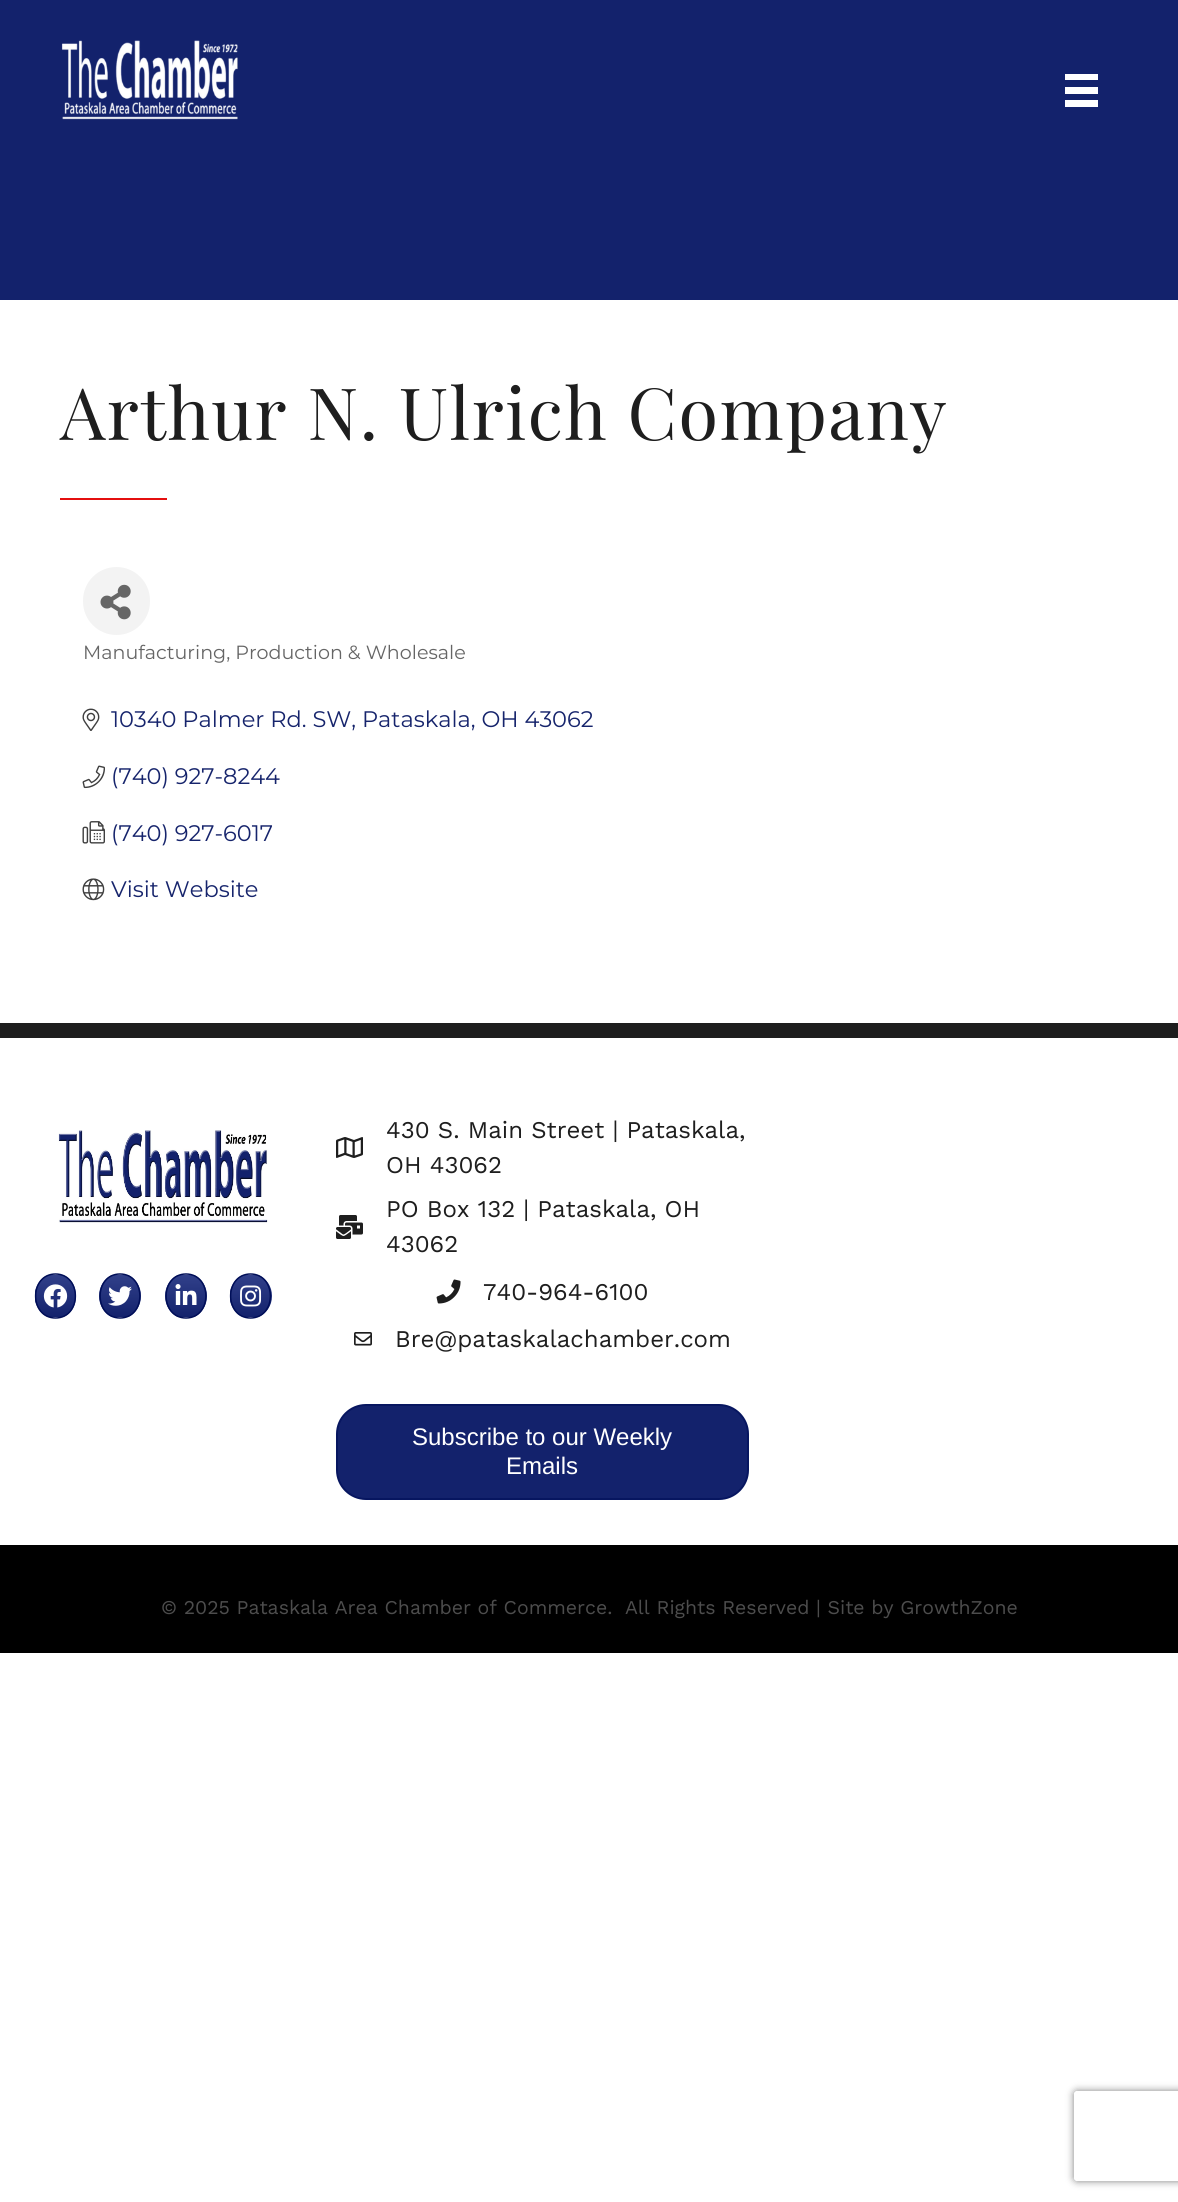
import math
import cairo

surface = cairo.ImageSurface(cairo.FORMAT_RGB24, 1178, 2202)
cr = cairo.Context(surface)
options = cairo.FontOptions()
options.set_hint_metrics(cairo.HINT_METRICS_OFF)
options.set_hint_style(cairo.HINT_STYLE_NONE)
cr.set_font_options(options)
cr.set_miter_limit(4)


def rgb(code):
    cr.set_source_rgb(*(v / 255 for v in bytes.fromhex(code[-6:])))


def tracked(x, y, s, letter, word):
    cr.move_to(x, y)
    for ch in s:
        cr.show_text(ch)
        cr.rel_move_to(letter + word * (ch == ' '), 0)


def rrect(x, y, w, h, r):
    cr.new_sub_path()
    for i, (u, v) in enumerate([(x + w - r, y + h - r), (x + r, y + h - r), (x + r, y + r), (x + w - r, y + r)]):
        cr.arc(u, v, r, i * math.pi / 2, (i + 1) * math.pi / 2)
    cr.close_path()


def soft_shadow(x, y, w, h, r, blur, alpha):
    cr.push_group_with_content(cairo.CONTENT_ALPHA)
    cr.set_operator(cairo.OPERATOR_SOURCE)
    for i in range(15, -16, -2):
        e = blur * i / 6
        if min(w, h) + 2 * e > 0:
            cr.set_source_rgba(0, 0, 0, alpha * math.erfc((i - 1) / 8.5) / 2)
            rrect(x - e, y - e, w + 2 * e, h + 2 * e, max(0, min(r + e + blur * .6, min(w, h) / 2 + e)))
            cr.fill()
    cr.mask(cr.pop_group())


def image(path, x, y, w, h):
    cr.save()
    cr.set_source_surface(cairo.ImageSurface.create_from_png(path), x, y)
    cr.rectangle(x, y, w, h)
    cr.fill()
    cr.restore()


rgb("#ffffff")
cr.paint()
rgb("#13226c")
cr.rectangle(0, 0, 1178, 300)
cr.fill()
image("img/1.png", 61, 40, 177, 80)
for x, y, w, h, color in [
    (1065, 74, 33, 6, "#ffffff"),
    (1065, 87, 33, 7, "#ffffff"),
    (1065, 100, 33, 7, "#ffffff"),
    (60, 498, 107, 2, "#e40f0f"),
]:
    rgb(color)
    cr.rectangle(x, y, w, h)
    cr.fill()
rgb("#f3f3f3")
rrect(83, 567, 67, 68, 33.5)
cr.fill()
image("img/2.png", 100, 584, 31, 36)
image("img/3.png", 82, 708, 18, 23)
image("img/4.png", 82, 765, 23, 24)
image("img/5.png", 82, 821, 23, 23)
image("img/6.png", 82, 878, 23, 23)
rgb("#1e1e1e")
cr.rectangle(0, 1023, 1178, 15)
cr.fill()
image("img/7.png", 58, 1130, 210, 93)
gradient = cairo.LinearGradient(56, 1275, 56, 1317)
gradient.add_color_stop_rgba(0, 0.192, 0.251, 0.541, 1)
gradient.add_color_stop_rgba(1, 0.075, 0.133, 0.424, 1)
cr.set_source(gradient)
cr.new_path()
cr.move_to(35, 1291)
cr.curve_to(37, 1284, 41, 1278, 48, 1275)
cr.line_to(63, 1275)
cr.curve_to(71, 1278, 76, 1286, 76, 1296)
cr.curve_to(76, 1306, 71, 1314, 63, 1317)
cr.line_to(48, 1317)
cr.curve_to(41, 1314, 37, 1308, 35, 1301)
cr.close_path()
cr.fill()
cr.new_path()
cr.move_to(55.5, 1274)
cr.curve_to(82, 1274, 82, 1318, 55.5, 1318)
cr.curve_to(29, 1318, 29, 1274, 55.5, 1274)
cr.close_path()
rgb("#000e58")
cr.set_line_width(1.5)
cr.stroke()
image("img/8.png", 43, 1284, 25, 24)
gradient = cairo.LinearGradient(120, 1275, 120, 1317)
gradient.add_color_stop_rgba(0, 0.192, 0.251, 0.541, 1)
gradient.add_color_stop_rgba(1, 0.075, 0.133, 0.424, 1)
cr.set_source(gradient)
cr.new_path()
cr.move_to(112, 1317)
cr.curve_to(105, 1314, 99, 1306, 99, 1296)
cr.curve_to(99, 1286, 105, 1278, 112, 1275)
cr.line_to(128, 1275)
cr.curve_to(135, 1278, 141, 1286, 141, 1296)
cr.curve_to(141, 1306, 135, 1314, 128, 1317)
cr.close_path()
cr.fill()
cr.new_path()
cr.move_to(120, 1274)
cr.curve_to(146.5, 1274, 146.5, 1318, 120, 1318)
cr.curve_to(93.5, 1318, 93.5, 1274, 120, 1274)
cr.close_path()
rgb("#000e58")
cr.stroke()
image("img/9.png", 108, 1286, 24, 20)
gradient = cairo.LinearGradient(186, 1275, 186, 1317)
gradient.add_color_stop_rgba(0, 0.192, 0.251, 0.541, 1)
gradient.add_color_stop_rgba(1, 0.075, 0.133, 0.424, 1)
cr.set_source(gradient)
cr.new_path()
cr.move_to(178, 1317)
cr.curve_to(171, 1314, 165, 1306, 165, 1296)
cr.curve_to(165, 1286, 171, 1278, 178, 1275)
cr.line_to(194, 1275)
cr.curve_to(201, 1278, 207, 1286, 207, 1296)
cr.curve_to(207, 1306, 201, 1314, 194, 1317)
cr.close_path()
cr.fill()
cr.new_path()
cr.move_to(186, 1274)
cr.curve_to(212.5, 1274, 212.5, 1318, 186, 1318)
cr.curve_to(159.5, 1318, 159.5, 1274, 186, 1274)
cr.close_path()
rgb("#000e58")
cr.stroke()
image("img/10.png", 175, 1284, 22, 21)
gradient = cairo.LinearGradient(251, 1275, 251, 1317)
gradient.add_color_stop_rgba(0, 0.192, 0.251, 0.541, 1)
gradient.add_color_stop_rgba(1, 0.075, 0.133, 0.424, 1)
cr.set_source(gradient)
cr.new_path()
cr.move_to(230, 1291)
cr.curve_to(232, 1284, 236, 1278, 243, 1275)
cr.line_to(258, 1275)
cr.curve_to(266, 1278, 272, 1286, 272, 1296)
cr.curve_to(272, 1306, 266, 1314, 258, 1317)
cr.line_to(243, 1317)
cr.curve_to(236, 1314, 232, 1308, 230, 1301)
cr.close_path()
cr.fill()
cr.new_path()
cr.move_to(250.5, 1274)
cr.curve_to(277, 1274, 277, 1318, 250.5, 1318)
cr.curve_to(224, 1318, 224, 1274, 250.5, 1274)
cr.close_path()
rgb("#000e58")
cr.stroke()
image("img/11.png", 240, 1285, 22, 22)
image("img/12.png", 336, 1137, 27, 21)
image("img/13.png", 336, 1215, 27, 24)
image("img/14.png", 436, 1279, 25, 25)
image("img/15.png", 354, 1332, 18, 14)
rgb("#13226c")
rrect(337, 1405, 411, 94, 29)
cr.fill_preserve()
rgb("#071660")
cr.set_line_width(2)
cr.stroke()
rgb("#000000")
cr.rectangle(0, 1545, 1178, 108)
cr.fill()
cr.save()
cr.set_fill_rule(cairo.FILL_RULE_EVEN_ODD)
cr.new_path()
cr.move_to(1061, 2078)
cr.line_to(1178, 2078)
cr.line_to(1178, 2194)
cr.line_to(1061, 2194)
cr.close_path()
cr.move_to(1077, 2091)
cr.line_to(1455, 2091)
cr.curve_to(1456.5, 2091, 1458, 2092.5, 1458, 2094)
cr.line_to(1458, 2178)
cr.curve_to(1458, 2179.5, 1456.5, 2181, 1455, 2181)
cr.line_to(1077, 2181)
cr.curve_to(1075.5, 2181, 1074, 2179.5, 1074, 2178)
cr.line_to(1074, 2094)
cr.curve_to(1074, 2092.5, 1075.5, 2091, 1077, 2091)
cr.close_path()
cr.clip()
rgb("#808080")
soft_shadow(1074, 2091, 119, 90, 3, 4, 1)
cr.restore()
cr.select_font_face("Playfair Display")
cr.set_font_size(72)
rgb("#1e1e1e")
tracked(60, 440, "Arthur N. Ulrich Company", 1.5, 0)
cr.select_font_face("Montserrat")
cr.set_font_size(19.1)
rgb("#656565")
cr.move_to(83, 659)
cr.show_text("Manufacturing, Production & Wholesale")
cr.set_font_size(22.5)
rgb("#16246c")
for x, y, s in [
    (111, 727, "10340 Palmer Rd. SW, Pataskala, OH 43062"),
    (111, 784, "(740) 927-8244"),
    (111, 841, "(740) 927-6017"),
    (111, 897, "Visit Website"),
]:
    cr.move_to(x, y)
    cr.show_text(s)
cr.select_font_face("Work Sans")
cr.set_font_size(24)
rgb("#1e1e1e")
for x, y, s in [
    (386, 1138, "430 S. Main Street | Pataskala,"),
    (386, 1173, "OH 43062"),
    (386, 1217, "PO Box 132 | Pataskala, OH"),
    (386, 1252, "43062"),
    (483, 1300, "740-964-6100"),
    (395, 1347, "Bre@pataskalachamber.com"),
]:
    cr.move_to(x, y)
    cr.show_text(s)
cr.select_font_face("Liberation Sans")
rgb("#ffffff")
cr.move_to(412, 1445)
cr.show_text("Subscribe to our Weekly")
cr.move_to(506, 1474)
cr.show_text("Emails")
cr.select_font_face("Work Sans")
cr.set_font_size(19.5)
rgb("#4d4d4d")
cr.move_to(161, 1614)
cr.show_text("© 2025 Pataskala Area Chamber of Commerce.")
cr.move_to(625, 1614)
cr.show_text("All Rights Reserved | Site by GrowthZone")
surface.write_to_png("page.png")
